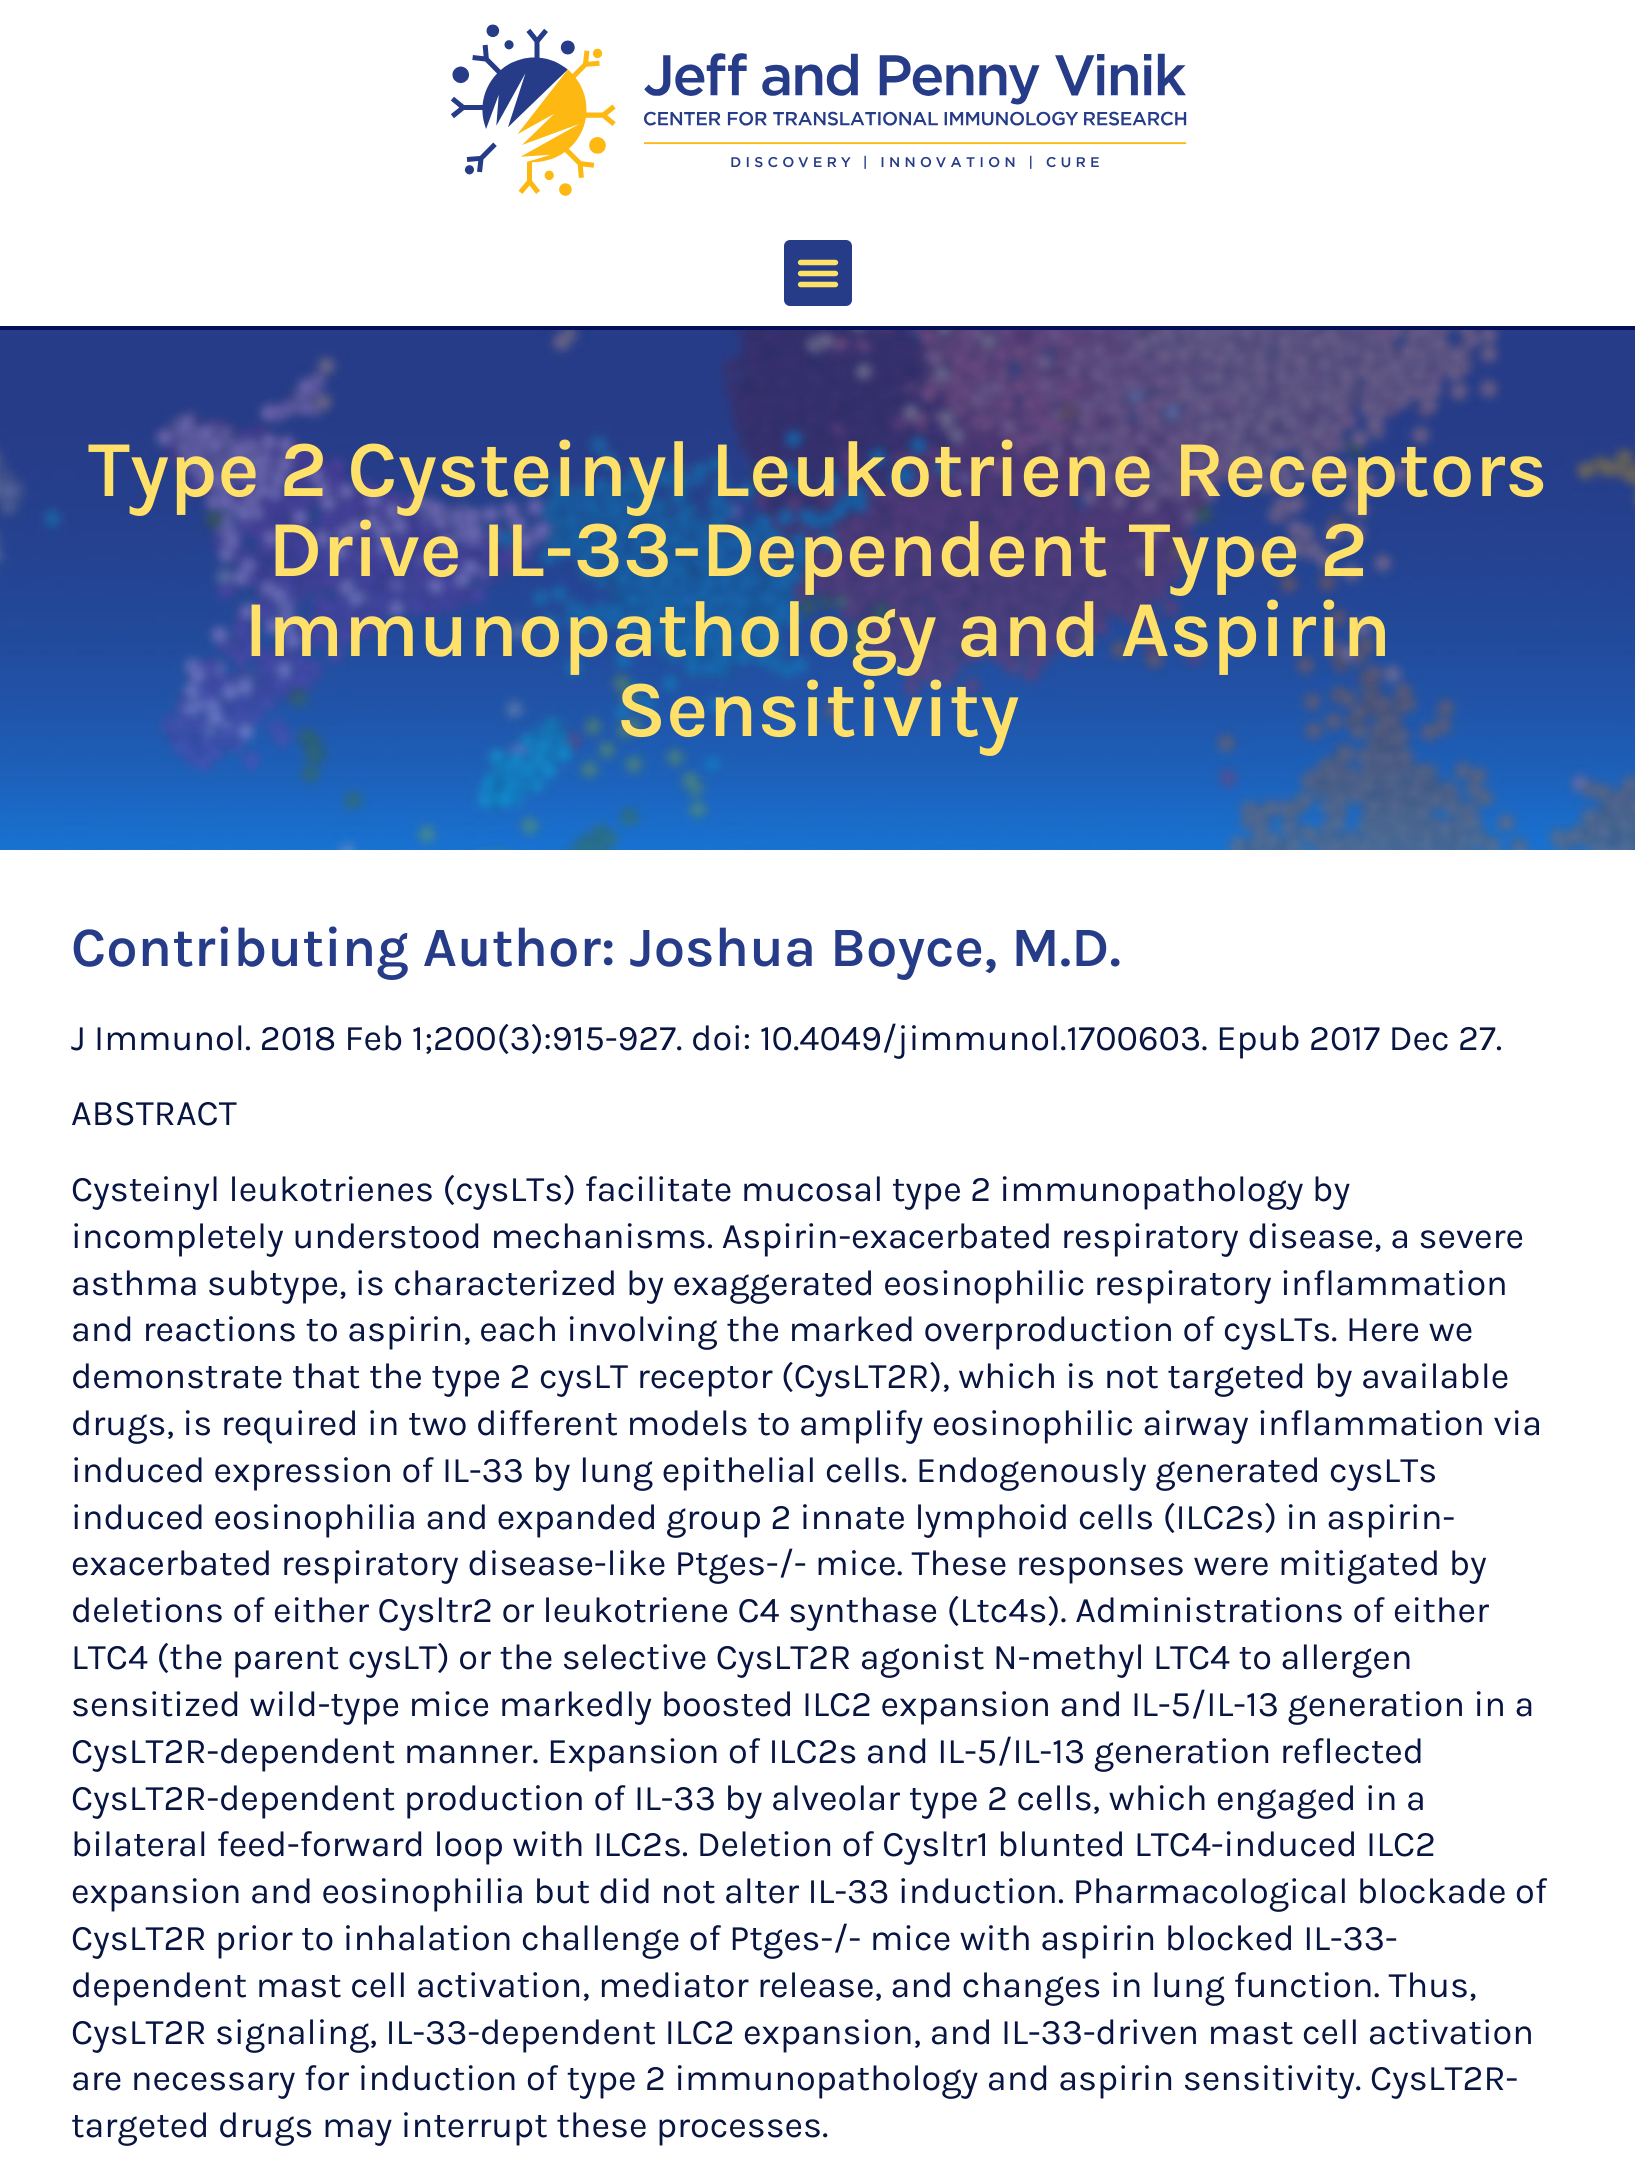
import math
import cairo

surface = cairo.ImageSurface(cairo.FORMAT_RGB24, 1635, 2175)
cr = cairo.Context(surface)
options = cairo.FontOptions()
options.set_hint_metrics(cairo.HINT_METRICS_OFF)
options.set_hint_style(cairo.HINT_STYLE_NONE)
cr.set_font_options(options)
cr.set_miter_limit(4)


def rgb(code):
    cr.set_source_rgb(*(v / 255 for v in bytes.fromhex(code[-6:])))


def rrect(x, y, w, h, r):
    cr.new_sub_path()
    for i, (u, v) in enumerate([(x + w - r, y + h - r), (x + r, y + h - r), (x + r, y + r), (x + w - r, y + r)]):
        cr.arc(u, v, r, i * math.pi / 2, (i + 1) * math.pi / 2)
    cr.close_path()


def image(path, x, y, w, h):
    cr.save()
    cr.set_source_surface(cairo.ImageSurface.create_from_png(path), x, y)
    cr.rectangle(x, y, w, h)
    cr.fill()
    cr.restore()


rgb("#ffffff")
cr.paint()
rgb("#040f57")
cr.rectangle(0, 326, 1635, 4)
cr.fill()
image("img/1.png", 450, 24, 737, 172)
rgb("#263c88")
rrect(784, 240, 68, 66, 6)
cr.fill()
image("img/2.png", 797, 259, 42, 29)
image("img/3.png", 0, 330, 1635, 520)
cr.select_font_face("Karla SemiBold")
cr.set_font_size(80)
rgb("#ffe169")
for x, y, s in [
    (88, 496, "Type 2 Cysteinyl Leukotriene Receptors"),
    (268, 576, "Drive IL-33-Dependent Type 2"),
    (244, 656, "Immunopathology and Aspirin"),
    (616, 736, "Sensitivity"),
]:
    cr.move_to(x, y)
    cr.show_text(s)
cr.set_font_size(56)
rgb("#263c88")
cr.move_to(71, 966)
cr.show_text("Contributing Author: Joshua Boyce, M.D.")
cr.select_font_face("Karla")
cr.set_font_size(36)
rgb("#081542")
for x, y, s in [
    (71, 1050, "J Immunol. 2018 Feb 1;200(3):915-927. doi: 10.4049/jimmunol.1700603. Epub 2017 Dec 27."),
    (71, 1125, "ABSTRACT"),
    (71, 1201, "Cysteinyl leukotrienes (cysLTs) facilitate mucosal type 2 immunopathology by"),
    (71, 1248, "incompletely understood mechanisms. Aspirin-exacerbated respiratory disease, a severe"),
    (71, 1295, "asthma subtype, is characterized by exaggerated eosinophilic respiratory inflammation"),
    (71, 1341, "and reactions to aspirin, each involving the marked overproduction of cysLTs. Here we"),
    (71, 1388, "demonstrate that the type 2 cysLT receptor (CysLT2R), which is not targeted by available"),
    (71, 1435, "drugs, is required in two different models to amplify eosinophilic airway inflammation via"),
    (71, 1482, "induced expression of IL-33 by lung epithelial cells. Endogenously generated cysLTs"),
    (71, 1529, "induced eosinophilia and expanded group 2 innate lymphoid cells (ILC2s) in aspirin-"),
    (71, 1575, "exacerbated respiratory disease-like Ptges-/- mice. These responses were mitigated by"),
    (71, 1622, "deletions of either Cysltr2 or leukotriene C4 synthase (Ltc4s). Administrations of either"),
    (71, 1669, "LTC4 (the parent cysLT) or the selective CysLT2R agonist N-methyl LTC4 to allergen"),
    (71, 1716, "sensitized wild-type mice markedly boosted ILC2 expansion and IL-5/IL-13 generation in a"),
    (71, 1763, "CysLT2R-dependent manner. Expansion of ILC2s and IL-5/IL-13 generation reflected"),
    (71, 1810, "CysLT2R-dependent production of IL-33 by alveolar type 2 cells, which engaged in a"),
    (71, 1856, "bilateral feed-forward loop with ILC2s. Deletion of Cysltr1 blunted LTC4-induced ILC2"),
    (71, 1903, "expansion and eosinophilia but did not alter IL-33 induction. Pharmacological blockade of"),
    (71, 1950, "CysLT2R prior to inhalation challenge of Ptges-/- mice with aspirin blocked IL-33-"),
    (71, 1997, "dependent mast cell activation, mediator release, and changes in lung function. Thus,"),
    (71, 2044, "CysLT2R signaling, IL-33-dependent ILC2 expansion, and IL-33-driven mast cell activation"),
    (71, 2090, "are necessary for induction of type 2 immunopathology and aspirin sensitivity. CysLT2R-"),
    (71, 2137, "targeted drugs may interrupt these processes."),
]:
    cr.move_to(x, y)
    cr.show_text(s)
surface.write_to_png("page.png")
